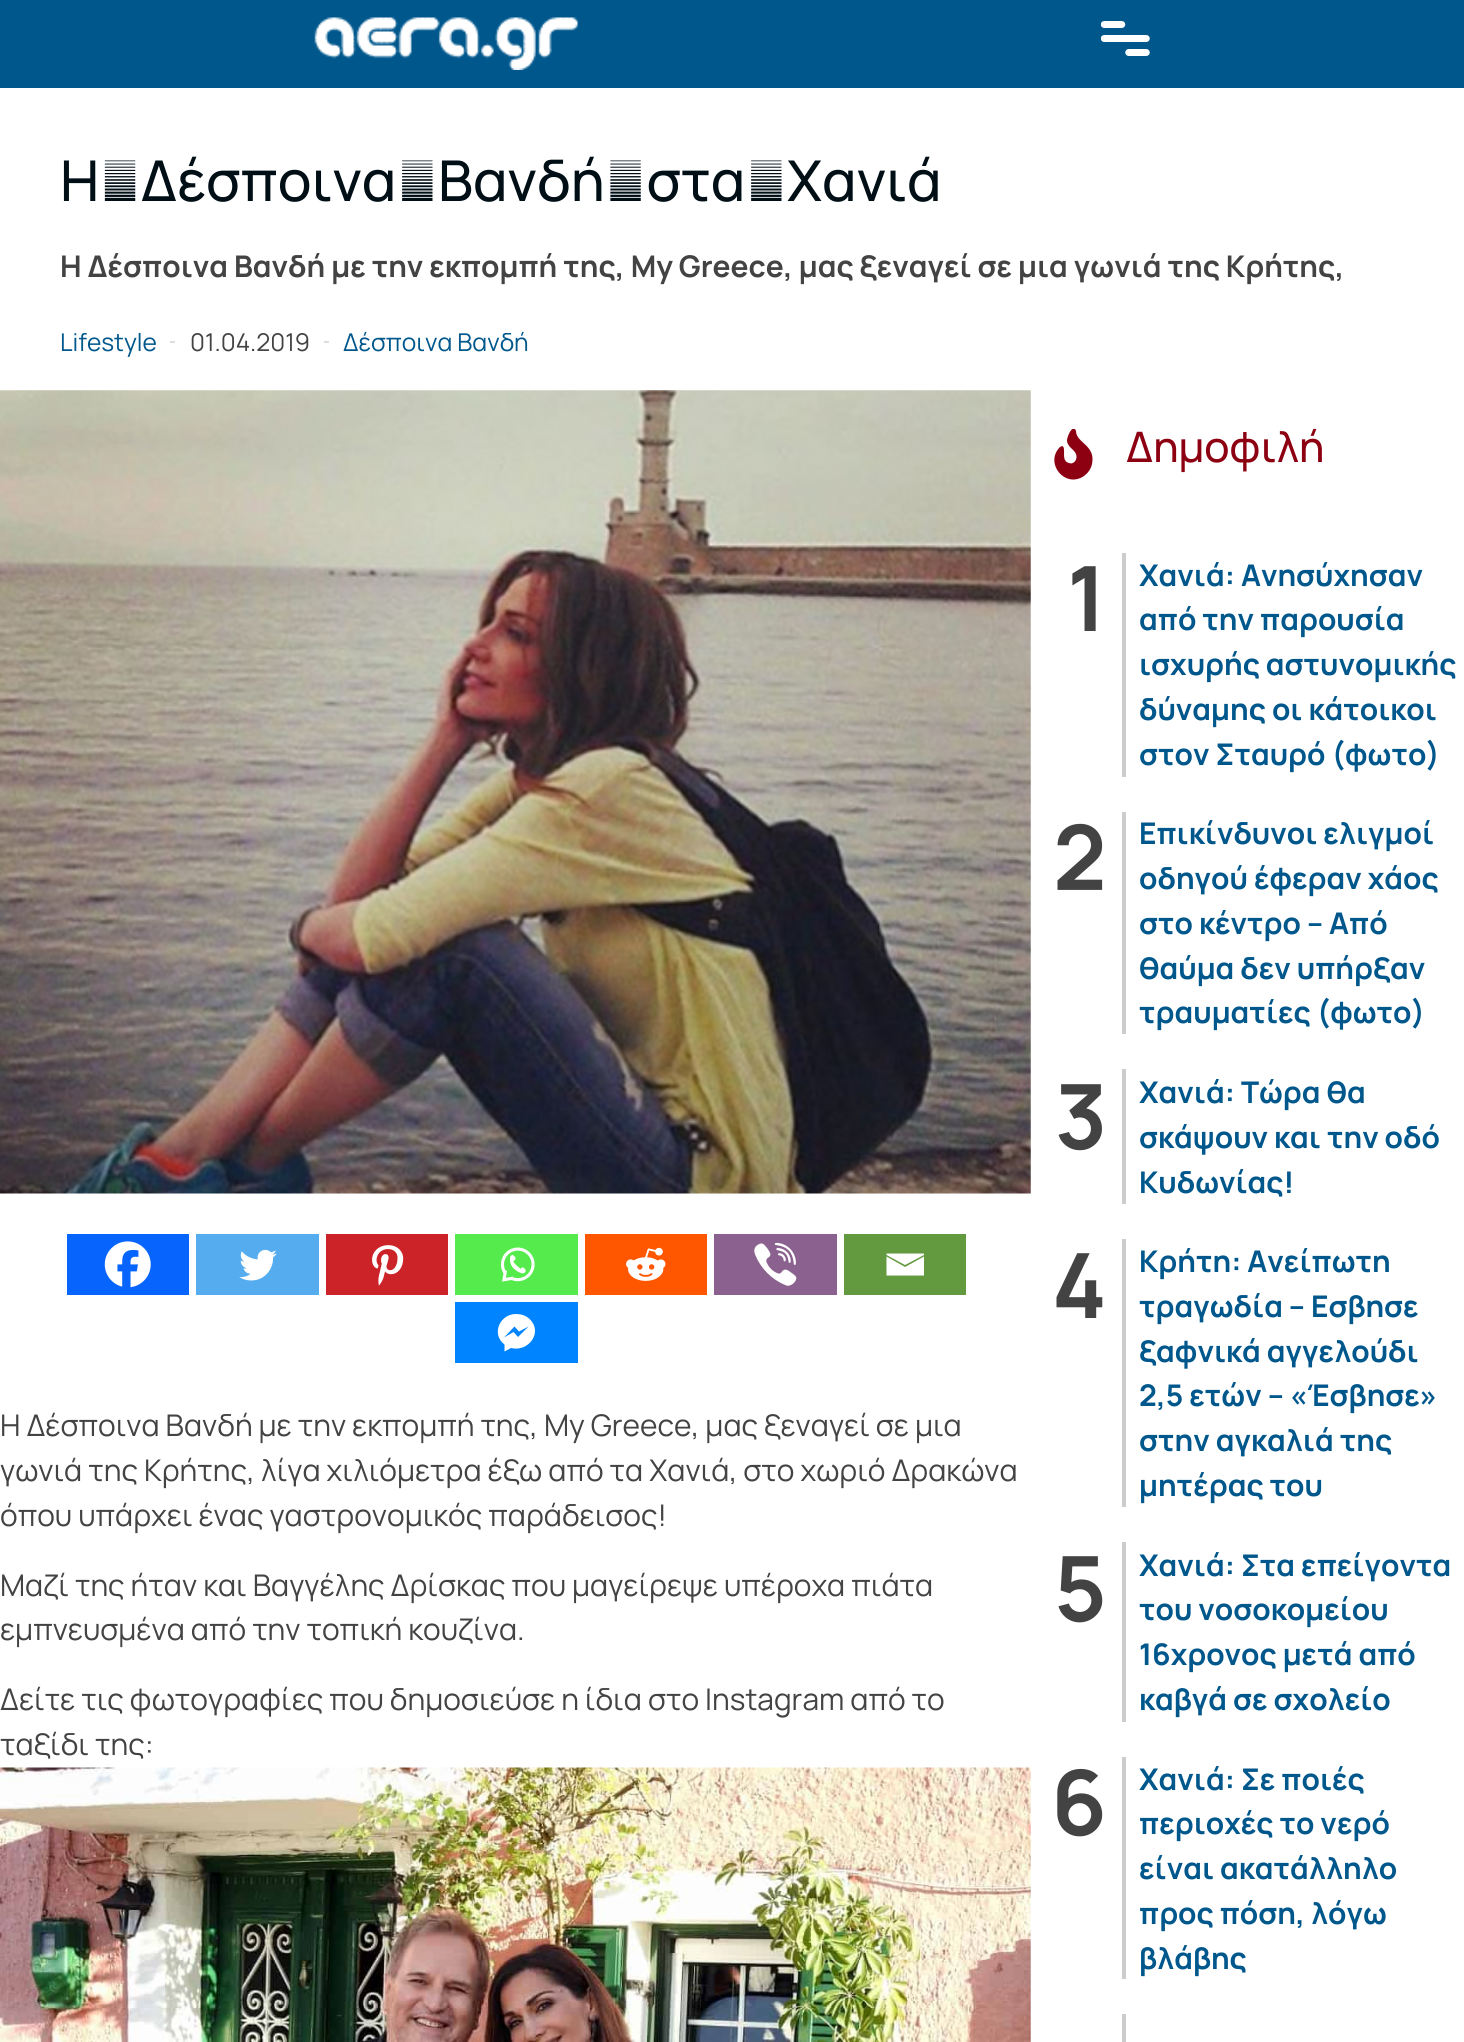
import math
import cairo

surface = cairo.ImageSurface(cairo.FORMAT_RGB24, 1464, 2042)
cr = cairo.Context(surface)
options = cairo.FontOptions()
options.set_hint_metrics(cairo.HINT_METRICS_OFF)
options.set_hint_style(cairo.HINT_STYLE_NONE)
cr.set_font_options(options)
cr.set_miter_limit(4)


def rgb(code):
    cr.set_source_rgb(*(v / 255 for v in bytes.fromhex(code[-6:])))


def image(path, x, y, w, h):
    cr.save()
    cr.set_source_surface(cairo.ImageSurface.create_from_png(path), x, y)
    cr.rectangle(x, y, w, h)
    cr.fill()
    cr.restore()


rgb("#ffffff")
cr.paint()
rgb("#00578c")
cr.rectangle(0, 0, 1464, 88)
cr.fill()
image("img/1.png", 314, 17, 264, 53)
image("img/2.png", 1101, 21, 49, 35)
rgb("#dddddd")
cr.rectangle(170, 341, 5, 2)
cr.fill()
cr.rectangle(324, 341, 5, 2)
cr.fill()
image("img/3.png", 0, 390, 1031, 804)
rgb("#0765fe")
cr.rectangle(67, 1234, 122, 61)
cr.fill()
image("img/4.png", 104, 1241, 47, 47)
rgb("#55acee")
cr.rectangle(196, 1234, 123, 61)
cr.fill()
image("img/5.png", 239, 1249, 38, 32)
rgb("#cc2329")
cr.rectangle(326, 1234, 122, 61)
cr.fill()
image("img/6.png", 372, 1245, 32, 41)
rgb("#55eb4c")
cr.rectangle(455, 1234, 123, 61)
cr.fill()
image("img/7.png", 500, 1247, 35, 35)
rgb("#ff5700")
cr.rectangle(585, 1234, 122, 61)
cr.fill()
image("img/8.png", 626, 1247, 40, 34)
rgb("#8b628f")
cr.rectangle(714, 1234, 123, 61)
cr.fill()
image("img/9.png", 754, 1242, 43, 44)
rgb("#649a3f")
cr.rectangle(844, 1234, 122, 61)
cr.fill()
rgb("#ffffff")
cr.new_path()
cr.move_to(885, 1253.5)
cr.line_to(924, 1253.5)
cr.line_to(924, 1255)
cr.line_to(905, 1265)
cr.line_to(886.5, 1255)
cr.line_to(886.5, 1253.5)
cr.move_to(886.5, 1256.5)
cr.line_to(905, 1267)
cr.line_to(924, 1256.5)
cr.line_to(924, 1275.5)
cr.line_to(886.5, 1275.5)
cr.line_to(886.5, 1256.5)
cr.fill()
rgb("#0084ff")
cr.rectangle(455, 1302, 123, 61)
cr.fill()
rgb("#ffffff")
cr.new_path()
cr.move_to(516, 1314)
cr.curve_to(499.5, 1314, 491, 1334.5, 504.5, 1344.5)
cr.line_to(504.5, 1351.5)
cr.line_to(511, 1348)
cr.curve_to(528.5, 1352.5, 543.5, 1332, 529.5, 1319)
cr.curve_to(526, 1315.5, 521, 1314, 516, 1314)
cr.close_path()
cr.move_to(518, 1337)
cr.line_to(513.5, 1332)
cr.line_to(504, 1337.5)
cr.line_to(514.5, 1326.5)
cr.line_to(519, 1331.5)
cr.line_to(528.5, 1326.5)
cr.close_path()
cr.fill()
image("img/10.png", 0, 1767, 1031, 275)
cr.save()
cr.rectangle(1048, 429, 51, 51)
cr.clip()
rgb("#8c0011")
cr.new_path()
cr.move_to(1076, 431)
cr.line_to(1075, 429)
cr.curve_to(1071, 426, 1067, 438, 1067, 440)
cr.curve_to(1067, 447, 1074, 449, 1076, 454)
cr.curve_to(1078, 459, 1074, 465, 1069, 463)
cr.curve_to(1060, 461, 1067, 447, 1062, 446)
cr.line_to(1060, 447)
cr.curve_to(1044, 463, 1065, 489, 1084, 476)
cr.curve_to(1088, 473, 1091, 469, 1092, 464)
cr.curve_to(1096, 445, 1076, 443, 1076, 431)
cr.close_path()
cr.fill()
cr.restore()
for x, y, w, h, color in [
    (1122, 553, 4, 224, "#cccccc"),
    (1122, 812, 4, 222, "#cccccc"),
    (1122, 1069, 4, 135, "#cccccc"),
    (1122, 1239, 4, 268, "#cccccc"),
    (1122, 1542, 4, 180, "#cccccc"),
    (1122, 1757, 4, 222, "#cccccc"),
    (1122, 2014, 4, 28, "#cccccc"),
]:
    rgb(color)
    cr.rectangle(x, y, w, h)
    cr.fill()
cr.select_font_face("Manrope Medium")
cr.set_font_size(56.25)
rgb("#000e16")
cr.move_to(60, 201)
cr.show_text("Η Δέσποινα Βανδή στα Χανιά")
cr.select_font_face("Manrope", cairo.FONT_SLANT_NORMAL, cairo.FONT_WEIGHT_BOLD)
cr.set_font_size(29.85)
rgb("#434343")
cr.move_to(60, 277)
cr.show_text("Η Δέσποινα Βανδή με την εκπομπή της, My Greece, μας ξεναγεί σε μια γωνιά της Κρήτης,")
cr.select_font_face("Manrope")
cr.set_font_size(24.5)
rgb("#00578c")
cr.move_to(60, 351)
cr.show_text("Lifestyle")
rgb("#434343")
cr.move_to(190, 351)
cr.show_text("01.04.2019")
rgb("#00578c")
cr.move_to(343, 351)
cr.show_text("Δέσποινα Βανδή")
cr.set_font_size(29.85)
rgb("#434343")
for x, y, s in [
    (0, 1436, "Η Δέσποινα Βανδή με την εκπομπή της, My Greece, μας ξεναγεί σε μια"),
    (0, 1481, "γωνιά της Κρήτης, λίγα χιλιόμετρα έξω από τα Χανιά, στο χωριό Δρακώνα"),
    (0, 1526, "όπου υπάρχει ένας γαστρονομικός παράδεισος!"),
    (0, 1596, "Μαζί της ήταν και Βαγγέλης Δρίσκας που μαγείρεψε υπέροχα πιάτα"),
    (0, 1640, "εμπνευσμένα από την τοπική κουζίνα."),
    (0, 1710, "Δείτε τις φωτογραφίες που δημοσιεύσε η ίδια στο Instagram από το"),
    (0, 1755, "ταξίδι της:"),
]:
    cr.move_to(x, y)
    cr.show_text(s)
cr.select_font_face("Manrope Medium")
cr.set_font_size(42)
rgb("#8c0011")
cr.move_to(1126, 462)
cr.show_text("Δημοφιλή")
cr.select_font_face("Manrope", cairo.FONT_SLANT_NORMAL, cairo.FONT_WEIGHT_BOLD)
cr.set_font_size(90)
rgb("#434343")
cr.move_to(1067, 631)
cr.show_text("1")
cr.set_font_size(29.85)
rgb("#00578c")
for x, y, s in [
    (1139, 586, "Χανιά: Ανησύχησαν"),
    (1139, 630, "από την παρουσία"),
    (1139, 675, "ισχυρής αστυνομικής"),
    (1139, 720, "δύναμης οι κάτοικοι"),
    (1139, 765, "στον Σταυρό (φωτο)"),
]:
    cr.move_to(x, y)
    cr.show_text(s)
cr.set_font_size(90)
rgb("#434343")
cr.move_to(1053, 890)
cr.show_text("2")
cr.set_font_size(29.85)
rgb("#00578c")
for x, y, s in [
    (1139, 844, "Επικίνδυνοι ελιγμοί"),
    (1139, 889, "οδηγού έφεραν χάος"),
    (1139, 934, "στο κέντρο – Από"),
    (1139, 979, "θαύμα δεν υπήρξαν"),
    (1139, 1023, "τραυματίες (φωτο)"),
]:
    cr.move_to(x, y)
    cr.show_text(s)
cr.set_font_size(90)
rgb("#434343")
cr.move_to(1055, 1149)
cr.show_text("3")
cr.set_font_size(29.85)
rgb("#00578c")
for x, y, s in [
    (1139, 1103, "Χανιά: Τώρα θα"),
    (1139, 1148, "σκάψουν και την οδό"),
    (1139, 1193, "Κυδωνίας!"),
]:
    cr.move_to(x, y)
    cr.show_text(s)
cr.set_font_size(90)
rgb("#434343")
cr.move_to(1052, 1318)
cr.show_text("4")
cr.set_font_size(29.85)
rgb("#00578c")
for x, y, s in [
    (1139, 1272, "Κρήτη: Ανείπωτη"),
    (1139, 1317, "τραγωδία – Εσβησε"),
    (1139, 1362, "ξαφνικά αγγελούδι"),
    (1139, 1406, "2,5 ετών – «Έσβησε»"),
    (1139, 1451, "στην αγκαλιά της"),
    (1139, 1496, "μητέρας του"),
]:
    cr.move_to(x, y)
    cr.show_text(s)
cr.set_font_size(90)
rgb("#434343")
cr.move_to(1054, 1621)
cr.show_text("5")
cr.set_font_size(29.85)
rgb("#00578c")
for x, y, s in [
    (1139, 1576, "Χανιά: Στα επείγοντα"),
    (1139, 1620, "του νοσοκομείου"),
    (1139, 1665, "16χρονος μετά από"),
    (1139, 1710, "καβγά σε σχολείο"),
]:
    cr.move_to(x, y)
    cr.show_text(s)
cr.set_font_size(90)
rgb("#434343")
cr.move_to(1051, 1835)
cr.show_text("6")
cr.set_font_size(29.85)
rgb("#00578c")
for x, y, s in [
    (1139, 1790, "Χανιά: Σε ποιές"),
    (1139, 1834, "περιοχές το νερό"),
    (1139, 1879, "είναι ακατάλληλο"),
    (1139, 1924, "προς πόση, λόγω"),
    (1139, 1969, "βλάβης"),
]:
    cr.move_to(x, y)
    cr.show_text(s)
surface.write_to_png("page.png")
